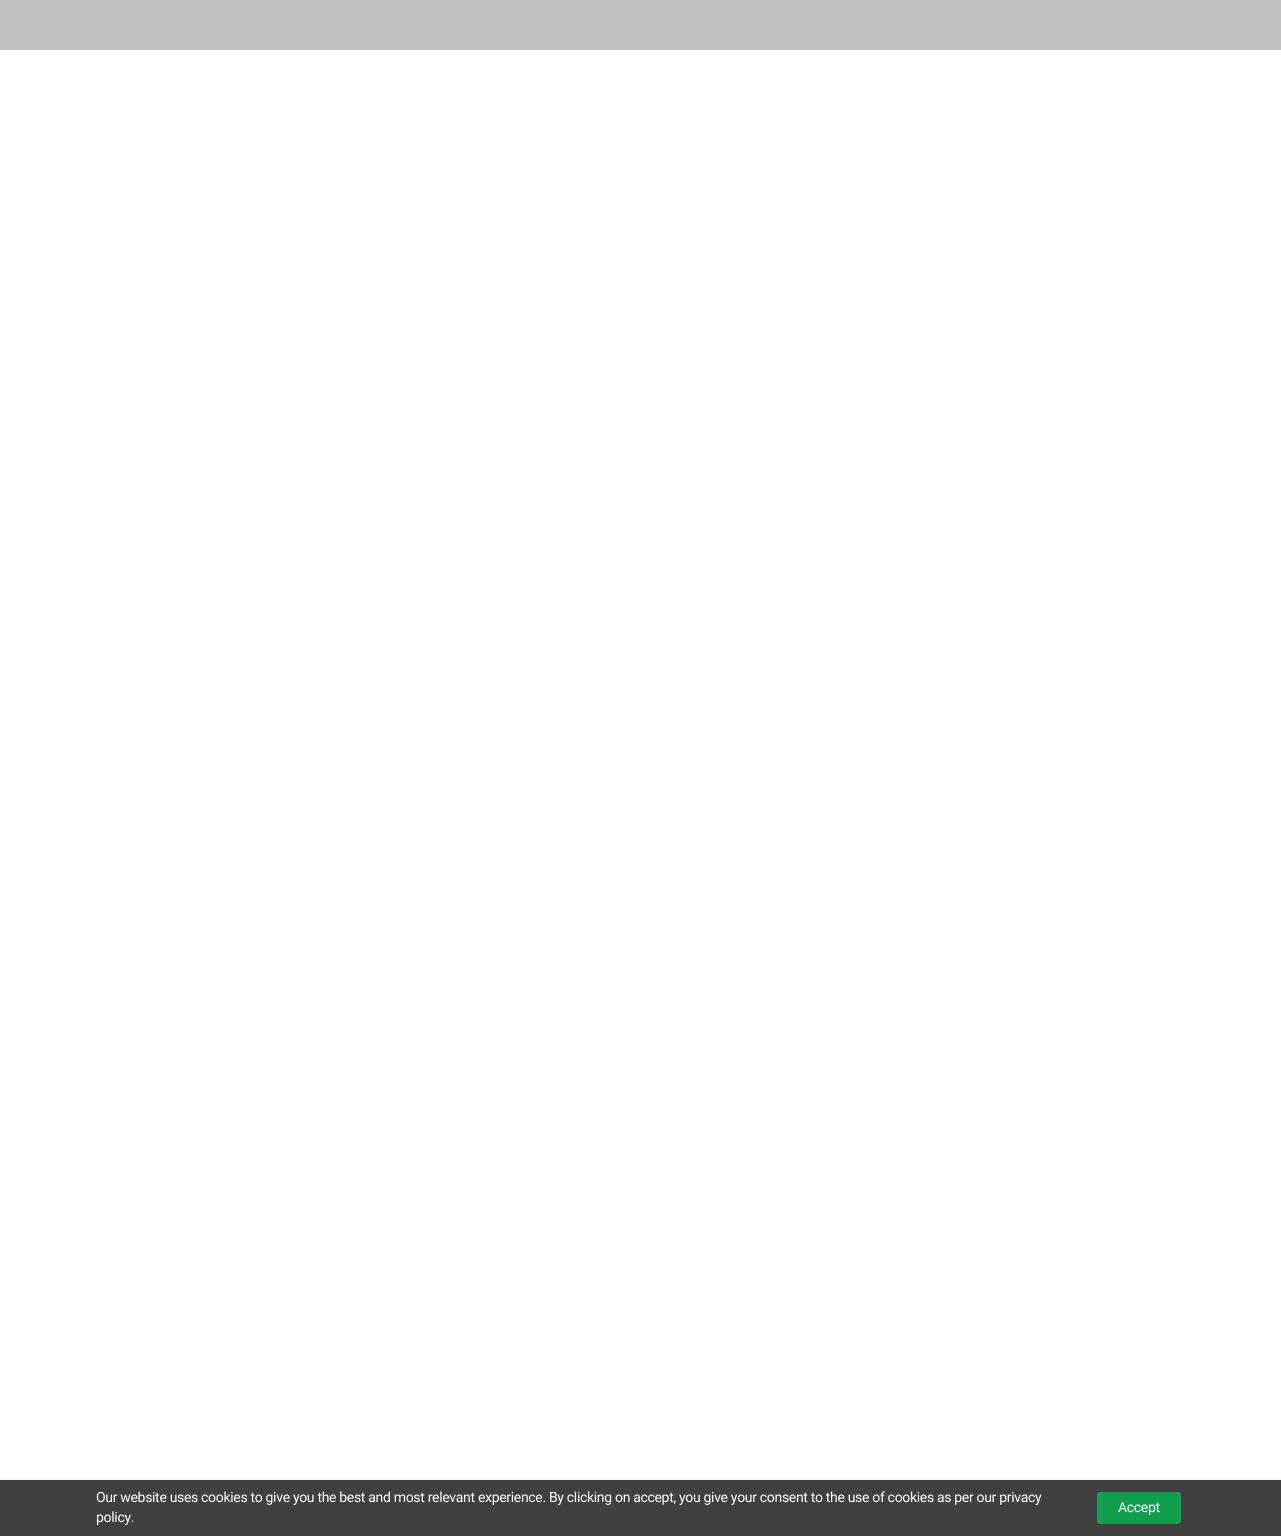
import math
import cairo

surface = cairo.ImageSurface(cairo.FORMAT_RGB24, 1281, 1536)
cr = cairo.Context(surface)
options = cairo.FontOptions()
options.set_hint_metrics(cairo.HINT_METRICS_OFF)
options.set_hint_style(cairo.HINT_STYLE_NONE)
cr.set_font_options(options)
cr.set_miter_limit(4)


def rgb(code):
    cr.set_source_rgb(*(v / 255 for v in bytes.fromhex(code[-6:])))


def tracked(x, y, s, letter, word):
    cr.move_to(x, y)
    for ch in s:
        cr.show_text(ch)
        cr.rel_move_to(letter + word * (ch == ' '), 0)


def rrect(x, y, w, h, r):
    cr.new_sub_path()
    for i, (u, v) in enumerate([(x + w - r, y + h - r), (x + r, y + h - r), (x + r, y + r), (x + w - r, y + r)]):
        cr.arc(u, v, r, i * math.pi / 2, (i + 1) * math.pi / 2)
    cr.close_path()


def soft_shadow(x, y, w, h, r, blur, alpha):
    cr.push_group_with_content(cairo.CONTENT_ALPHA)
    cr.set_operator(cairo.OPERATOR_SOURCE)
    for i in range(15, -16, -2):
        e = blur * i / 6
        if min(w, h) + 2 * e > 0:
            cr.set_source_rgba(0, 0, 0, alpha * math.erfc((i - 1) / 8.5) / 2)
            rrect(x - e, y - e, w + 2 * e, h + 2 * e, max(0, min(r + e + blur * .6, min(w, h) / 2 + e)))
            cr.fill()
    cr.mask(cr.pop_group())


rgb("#ffffff")
cr.paint()
rgb("#c2c2c2")
cr.rectangle(0, 0, 1281, 50)
cr.fill()
rgb("#000000")
soft_shadow(0, 1483, 1281, 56, 0, 3, 0.23)
rgb("#404040")
cr.rectangle(0, 1480, 1281, 56)
cr.fill()
rgb("#0f9f4f")
rrect(1097.5, 1492.5, 83, 31, 2.5)
cr.fill_preserve()
cr.set_line_width(1)
cr.stroke()
cr.select_font_face("Roboto")
cr.set_font_size(14)
rgb("#ffffff")
for x, y, s in [
    (96, 1502, "Our website uses cookies to give you the best and most relevant experience. By clicking on accept, you give your consent to the use of cookies as per our privacy"),
    (96, 1522, "policy."),
    (1118, 1512, "Accept"),
]:
    tracked(x, y, s, -0.32, 0)
surface.write_to_png("page.png")
